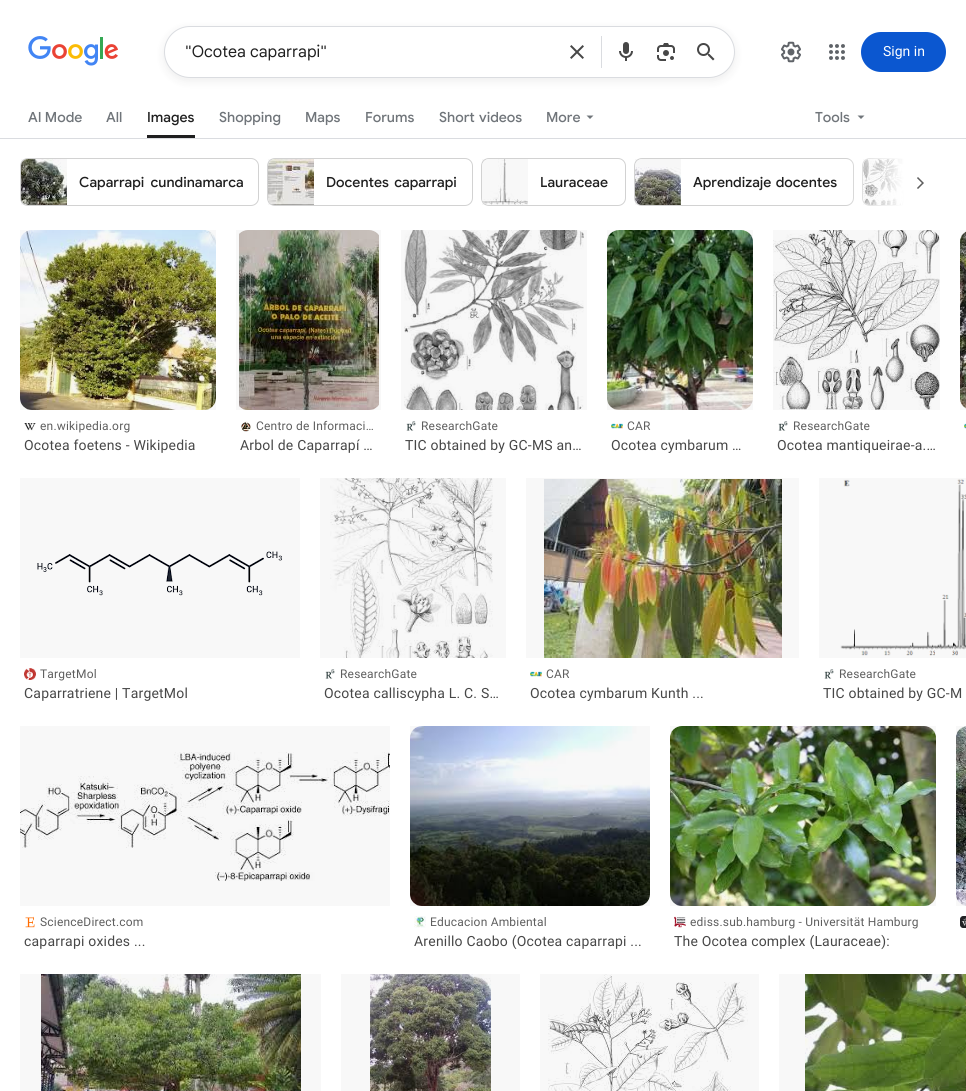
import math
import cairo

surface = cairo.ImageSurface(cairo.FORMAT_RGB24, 966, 1091)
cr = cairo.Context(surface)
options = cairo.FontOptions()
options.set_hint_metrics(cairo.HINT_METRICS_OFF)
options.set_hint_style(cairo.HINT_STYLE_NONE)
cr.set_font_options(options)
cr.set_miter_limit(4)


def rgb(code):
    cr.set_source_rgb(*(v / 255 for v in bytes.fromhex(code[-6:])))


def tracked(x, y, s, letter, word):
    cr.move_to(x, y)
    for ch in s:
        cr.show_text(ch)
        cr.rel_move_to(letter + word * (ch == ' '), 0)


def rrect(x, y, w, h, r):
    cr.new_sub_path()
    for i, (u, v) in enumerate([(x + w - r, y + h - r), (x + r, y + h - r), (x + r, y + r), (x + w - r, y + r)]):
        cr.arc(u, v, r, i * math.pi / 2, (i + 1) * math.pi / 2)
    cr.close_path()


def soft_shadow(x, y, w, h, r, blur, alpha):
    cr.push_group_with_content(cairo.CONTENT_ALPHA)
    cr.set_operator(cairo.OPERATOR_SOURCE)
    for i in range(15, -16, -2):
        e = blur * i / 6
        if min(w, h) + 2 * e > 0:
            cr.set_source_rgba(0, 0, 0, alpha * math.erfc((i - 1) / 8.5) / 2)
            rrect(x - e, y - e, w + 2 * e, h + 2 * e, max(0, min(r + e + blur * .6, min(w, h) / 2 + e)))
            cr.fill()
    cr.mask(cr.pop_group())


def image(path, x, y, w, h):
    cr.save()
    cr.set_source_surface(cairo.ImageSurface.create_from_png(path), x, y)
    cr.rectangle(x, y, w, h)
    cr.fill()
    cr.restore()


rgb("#ffffff")
cr.paint()
image("img/1.png", 28, 36, 90, 30)
rgb("#1f1f1f")
soft_shadow(164, 29, 571, 52, 26, 5, 0.08)
rgb("#ffffff")
rrect(164.5, 26.5, 570, 51, 25.5)
cr.fill_preserve()
rgb("#dadce0")
cr.set_line_width(1)
cr.stroke()
image("img/2.png", 570, 45, 14, 14)
cr.rectangle(601, 36, 1, 32)
cr.fill()
image("img/3.png", 619, 42, 14, 19)
image("img/4.png", 657, 43, 18, 18)
image("img/5.png", 697, 43, 18, 18)
image("img/6.png", 781, 41, 20, 22)
image("img/7.png", 829, 44, 16, 16)
rgb("#0b57d0")
rrect(861, 32, 85, 40, 20)
cr.fill()
rgb("#1f1f1f")
cr.rectangle(147, 135, 48, 3)
cr.fill()
rgb("#70757a")
cr.new_path()
cr.move_to(586.5, 115.5)
cr.line_to(590, 119)
cr.line_to(593.5, 115.5)
cr.close_path()
cr.fill()
cr.new_path()
cr.move_to(857.5, 115.5)
cr.line_to(861, 119)
cr.line_to(864.5, 115.5)
cr.close_path()
cr.fill()
rgb("#dadce0")
cr.rectangle(0, 138, 966, 1)
cr.fill()
rrect(20.5, 158.5, 238, 47, 7.5)
rgb("#d2d2d2")
cr.stroke()
image("img/8.png", 21, 159, 46, 46)
cr.set_source_rgba(0, 0, 0, 0.03)
cr.rectangle(21, 159, 46, 46)
cr.fill()
rrect(267.5, 158.5, 205, 47, 7.5)
rgb("#d2d2d2")
cr.stroke()
image("img/9.png", 268, 159, 46, 46)
cr.set_source_rgba(0, 0, 0, 0.03)
cr.rectangle(268, 159, 46, 46)
cr.fill()
rrect(481.5, 158.5, 144, 47, 7.5)
rgb("#d2d2d2")
cr.stroke()
image("img/10.png", 482, 159, 46, 46)
cr.set_source_rgba(0, 0, 0, 0.03)
cr.rectangle(482, 159, 46, 46)
cr.fill()
rrect(634.5, 158.5, 219, 47, 7.5)
rgb("#d2d2d2")
cr.stroke()
image("img/11.png", 635, 159, 46, 46)
cr.set_source_rgba(0, 0, 0, 0.03)
cr.rectangle(635, 159, 46, 46)
cr.fill()
cr.save()
cr.rectangle(20, 158, 908, 50)
cr.clip()
rrect(862.5, 158.5, 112, 47, 7.5)
rgb("#d2d2d2")
cr.stroke()
cr.restore()
image("img/12.png", 863, 159, 41, 46)
cr.rectangle(863, 159, 41, 46)
cr.fill()
gradient = cairo.LinearGradient(844, 183, 944, 183)
gradient.add_color_stop_rgba(0, 1, 1, 1, 0)
gradient.add_color_stop_rgba(0.6, 1, 1, 1, 1)
gradient.add_color_stop_rgba(1, 1, 1, 1, 1)
cr.set_source(gradient)
cr.rectangle(849, 158, 79, 48)
cr.fill()
image("img/13.png", 917, 177, 7, 12)
image("img/14.png", 960, 231, 6, 178)
cr.set_source_rgba(0, 0, 0, 0.03)
cr.rectangle(960, 230, 6, 180)
cr.fill()
image("img/15.png", 964, 423, 2, 6)
image("img/16.png", 20, 230, 196, 180)
cr.rectangle(20, 230, 196, 180)
cr.fill()
image("img/17.png", 24, 423, 12, 8)
image("img/18.png", 239, 230, 140, 180)
cr.rectangle(236, 230, 145, 180)
cr.fill()
image("img/19.png", 241, 421, 11, 11)
image("img/20.png", 404, 230, 180, 180)
cr.rectangle(401, 230, 186, 180)
cr.fill()
image("img/21.png", 406, 421, 10, 10)
image("img/22.png", 607, 230, 146, 180)
cr.rectangle(607, 230, 146, 180)
cr.fill()
image("img/23.png", 611, 423, 12, 6)
image("img/24.png", 773, 230, 167, 180)
cr.rectangle(773, 230, 167, 180)
cr.fill()
image("img/25.png", 778, 421, 10, 10)
image("img/26.png", 37, 551, 245, 45)
cr.rectangle(20, 478, 280, 180)
cr.fill()
image("img/27.png", 24, 668, 12, 12)
image("img/28.png", 330, 478, 163, 180)
cr.rectangle(320, 478, 186, 180)
cr.fill()
image("img/21.png", 325, 669, 10, 10)
image("img/29.png", 544, 479, 238, 179)
cr.rectangle(526, 478, 273, 180)
cr.fill()
image("img/23.png", 530, 671, 12, 6)
image("img/30.png", 840, 479, 126, 177)
cr.rectangle(819, 478, 147, 180)
cr.fill()
image("img/21.png", 824, 669, 10, 10)
image("img/31.png", 956, 726, 10, 180)
cr.rectangle(956, 726, 10, 180)
cr.fill()
image("img/32.png", 960, 916, 6, 12)
image("img/33.png", 20, 752, 370, 129)
cr.rectangle(20, 726, 370, 180)
cr.fill()
image("img/34.png", 25, 916, 10, 12)
image("img/35.png", 410, 726, 240, 180)
cr.rectangle(410, 726, 240, 180)
cr.fill()
image("img/36.png", 414, 916, 12, 12)
image("img/37.png", 670, 726, 266, 180)
cr.rectangle(670, 726, 266, 180)
cr.fill()
image("img/38.png", 674, 916, 12, 12)
image("img/39.png", 41, 974, 260, 117)
cr.rectangle(20, 974, 301, 117)
cr.fill()
image("img/40.png", 370, 974, 121, 117)
cr.rectangle(341, 974, 179, 117)
cr.fill()
image("img/41.png", 548, 974, 200, 117)
cr.rectangle(540, 974, 219, 117)
cr.fill()
image("img/42.png", 805, 974, 161, 117)
cr.rectangle(779, 974, 187, 117)
cr.fill()
cr.select_font_face("Google Sans")
cr.set_font_size(16)
rgb("#1f1f1f")
cr.move_to(185, 57)
cr.show_text("\"Ocotea caparrapi\"")
cr.select_font_face("Roboto")
cr.set_font_size(14)
rgb("#ffffff")
cr.move_to(883, 56)
cr.show_text("Sign in")
cr.select_font_face("Google Sans Medium")
rgb("#70757a")
cr.move_to(28, 122)
cr.show_text("AI Mode")
cr.move_to(106, 122)
cr.show_text("All")
rgb("#1f1f1f")
cr.move_to(147, 122)
cr.show_text("Images")
rgb("#70757a")
for x, y, s in [
    (219, 122, "Shopping"),
    (305, 122, "Maps"),
    (365, 122, "Forums"),
]:
    cr.move_to(x, y)
    cr.show_text(s)
tracked(439, 122, "Short videos", 0, 1)
cr.move_to(546, 122)
cr.show_text("More")
cr.move_to(815, 122)
cr.show_text("Tools")
rgb("#1f1f1f")
tracked(79, 187, "Caparrapi cundinamarca", 0, 3)
tracked(326, 187, "Docentes caparrapi", 0, 2)
cr.move_to(540, 187)
cr.show_text("Lauraceae")
tracked(693, 187, "Aprendizaje docentes", 0, 1)
cr.select_font_face("Roboto")
cr.set_font_size(12)
rgb("#5e5e5e")
tracked(40, 430, "en.wikipedia.org", 0.2, 0)
cr.set_font_size(14)
rgb("#474747")
tracked(24, 450, "Ocotea foetens - Wikipedia", 0.2, 0)
cr.set_font_size(12)
rgb("#5e5e5e")
tracked(256, 430, "Centro de Informaci…", 0.2, 0)
cr.set_font_size(14)
rgb("#474747")
tracked(240, 450, "Arbol de Caparrapí …", 0.2, 0)
cr.set_font_size(12)
rgb("#5e5e5e")
tracked(421, 430, "ResearchGate", 0.2, 0)
cr.set_font_size(14)
rgb("#474747")
tracked(405, 450, "TIC obtained by GC-MS an…", 0.2, 0)
cr.set_font_size(12)
rgb("#5e5e5e")
tracked(627, 430, "CAR", 0.2, 0)
cr.set_font_size(14)
rgb("#474747")
tracked(611, 450, "Ocotea cymbarum …", 0.2, 0)
cr.set_font_size(12)
rgb("#5e5e5e")
tracked(793, 430, "ResearchGate", 0.2, 0)
cr.set_font_size(14)
rgb("#474747")
tracked(777, 450, "Ocotea mantiqueirae-a.…", 0.2, 0)
cr.set_font_size(12)
rgb("#5e5e5e")
tracked(40, 678, "TargetMol", 0.2, 0)
cr.set_font_size(14)
rgb("#474747")
tracked(24, 698, "Caparratriene | TargetMol", 0.2, 0)
cr.set_font_size(12)
rgb("#5e5e5e")
tracked(340, 678, "ResearchGate", 0.2, 0)
cr.set_font_size(14)
rgb("#474747")
tracked(324, 698, "Ocotea calliscypha L. C. S…", 0.2, 0)
cr.set_font_size(12)
rgb("#5e5e5e")
tracked(546, 678, "CAR", 0.2, 0)
cr.set_font_size(14)
rgb("#474747")
tracked(530, 698, "Ocotea cymbarum Kunth ...", 0.2, 0)
cr.set_font_size(12)
rgb("#5e5e5e")
tracked(839, 678, "ResearchGate", 0.2, 0)
cr.set_font_size(14)
rgb("#474747")
tracked(823, 698, "TIC obtained by GC-M", 0.2, 0)
cr.set_font_size(12)
rgb("#5e5e5e")
tracked(40, 926, "ScienceDirect.com", 0.2, 0)
cr.set_font_size(14)
rgb("#474747")
tracked(24, 946, "caparrapi oxides ...", 0.2, 0)
cr.set_font_size(12)
rgb("#5e5e5e")
tracked(430, 926, "Educacion Ambiental", 0.2, 0)
cr.set_font_size(14)
rgb("#474747")
tracked(414, 946, "Arenillo Caobo (Ocotea caparrapi ...", 0.2, 0)
cr.set_font_size(12)
rgb("#5e5e5e")
tracked(690, 926, "ediss.sub.hamburg - Universität Hamburg", 0.2, 0)
cr.set_font_size(14)
rgb("#474747")
tracked(674, 946, "The Ocotea complex (Lauraceae):", 0.2, 0)
surface.write_to_png("page.png")
